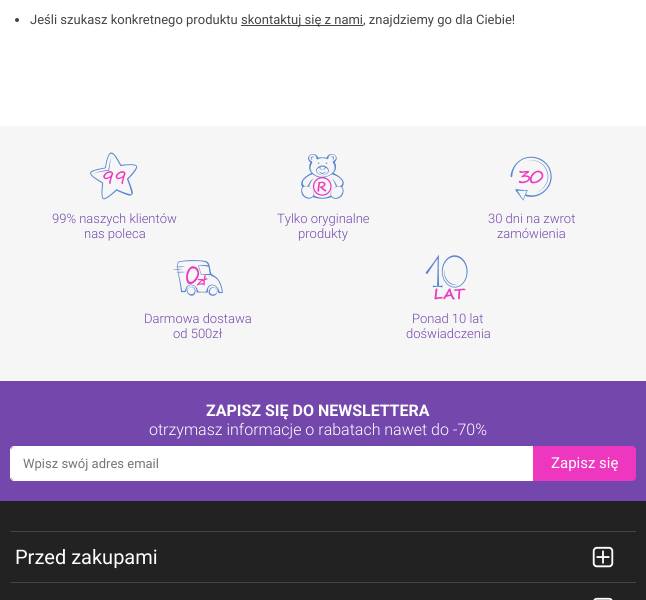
import math
import cairo

surface = cairo.ImageSurface(cairo.FORMAT_RGB24, 646, 600)
cr = cairo.Context(surface)
options = cairo.FontOptions()
options.set_hint_metrics(cairo.HINT_METRICS_OFF)
options.set_hint_style(cairo.HINT_STYLE_NONE)
cr.set_font_options(options)
cr.set_miter_limit(4)


def rgb(code):
    cr.set_source_rgb(*(v / 255 for v in bytes.fromhex(code[-6:])))


def image(path, x, y, w, h):
    cr.save()
    cr.set_source_surface(cairo.ImageSurface.create_from_png(path), x, y)
    cr.rectangle(x, y, w, h)
    cr.fill()
    cr.restore()


rgb("#ffffff")
cr.paint()
rgb("#444444")
cr.arc(17, 20, 2, 0, 2 * math.pi)
cr.fill()
for x, y, w, h, color in [
    (241, 25, 122, 1, "#444444"),
    (0, 501, 646, 99, "#222222"),
    (0, 126, 646, 255, "#f6f6f6"),
]:
    rgb(color)
    cr.rectangle(x, y, w, h)
    cr.fill()
image("img/1.png", 90, 152, 48, 48)
image("img/2.png", 301, 153, 43, 46)
image("img/3.png", 510, 156, 42, 45)
image("img/4.png", 173, 260, 50, 36)
image("img/5.png", 425, 254, 43, 46)
rgb("#7447ac")
cr.rectangle(0, 381, 646, 120)
cr.fill()
rgb("#ffffff")
cr.new_path()
cr.move_to(14, 447)
cr.line_to(533, 447)
cr.line_to(533, 480)
cr.line_to(14, 480)
cr.curve_to(12.5, 480, 11, 478.5, 11, 477)
cr.line_to(11, 450)
cr.curve_to(11, 448.5, 12.5, 447, 14, 447)
cr.close_path()
cr.fill()
cr.set_fill_rule(cairo.FILL_RULE_EVEN_ODD)
cr.new_path()
cr.move_to(14, 446)
cr.line_to(533, 446)
cr.line_to(533, 481)
cr.line_to(14, 481)
cr.curve_to(12, 481, 10, 479, 10, 477)
cr.line_to(10, 450)
cr.curve_to(10, 448, 12, 446, 14, 446)
cr.close_path()
cr.move_to(14, 447)
cr.line_to(533, 447)
cr.line_to(533, 480)
cr.line_to(14, 480)
cr.curve_to(12, 480, 11, 479, 11, 477)
cr.line_to(11, 450)
cr.curve_to(11, 448, 12, 447, 14, 447)
cr.close_path()
cr.fill()
rgb("#ec37be")
cr.new_path()
cr.move_to(533, 446)
cr.line_to(632, 446)
cr.curve_to(634, 446, 636, 448, 636, 450)
cr.line_to(636, 477)
cr.curve_to(636, 479, 634, 481, 632, 481)
cr.line_to(533, 481)
cr.close_path()
cr.fill()
rgb("#444444")
cr.rectangle(10, 531, 626, 1)
cr.fill()
image("img/6.png", 592, 546, 22, 22)
cr.rectangle(10, 582, 626, 1)
cr.fill()
image("img/7.png", 593, 597, 20, 3)
cr.select_font_face("Roboto")
cr.set_font_size(13)
cr.move_to(30, 24)
cr.show_text("Jeśli szukasz konkretnego produktu")
cr.move_to(241, 24)
cr.show_text("skontaktuj się z nami, znajdziemy go dla Ciebie!")
cr.select_font_face("Roboto Light")
rgb("#7447ac")
for x, y, s in [
    (52, 223, "99% naszych klientów"),
    (84, 238, "nas poleca"),
    (277, 223, "Tylko oryginalne"),
    (298, 238, "produkty"),
    (488, 223, "30 dni na zwrot"),
    (497, 238, "zamówienia"),
    (144, 323, "Darmowa dostawa"),
    (173, 338, "od 500zł"),
    (412, 323, "Ponad 10 lat"),
    (406, 338, "doświadczenia"),
]:
    cr.move_to(x, y)
    cr.show_text(s)
cr.select_font_face("Roboto", cairo.FONT_SLANT_NORMAL, cairo.FONT_WEIGHT_BOLD)
cr.set_font_size(16)
rgb("#ffffff")
cr.move_to(206, 416)
cr.show_text("ZAPISZ SIĘ DO NEWSLETTERA")
cr.select_font_face("Roboto Light")
cr.move_to(149, 435)
cr.show_text("otrzymasz informacje o rabatach nawet do -70%")
cr.select_font_face("Roboto")
cr.set_font_size(13)
rgb("#757575")
cr.move_to(23, 468)
cr.show_text("Wpisz swój adres email")
cr.set_font_size(15)
rgb("#ffffff")
cr.move_to(551, 468)
cr.show_text("Zapisz się")
cr.set_font_size(20)
cr.move_to(15, 564)
cr.show_text("Przed zakupami")
surface.write_to_png("page.png")
